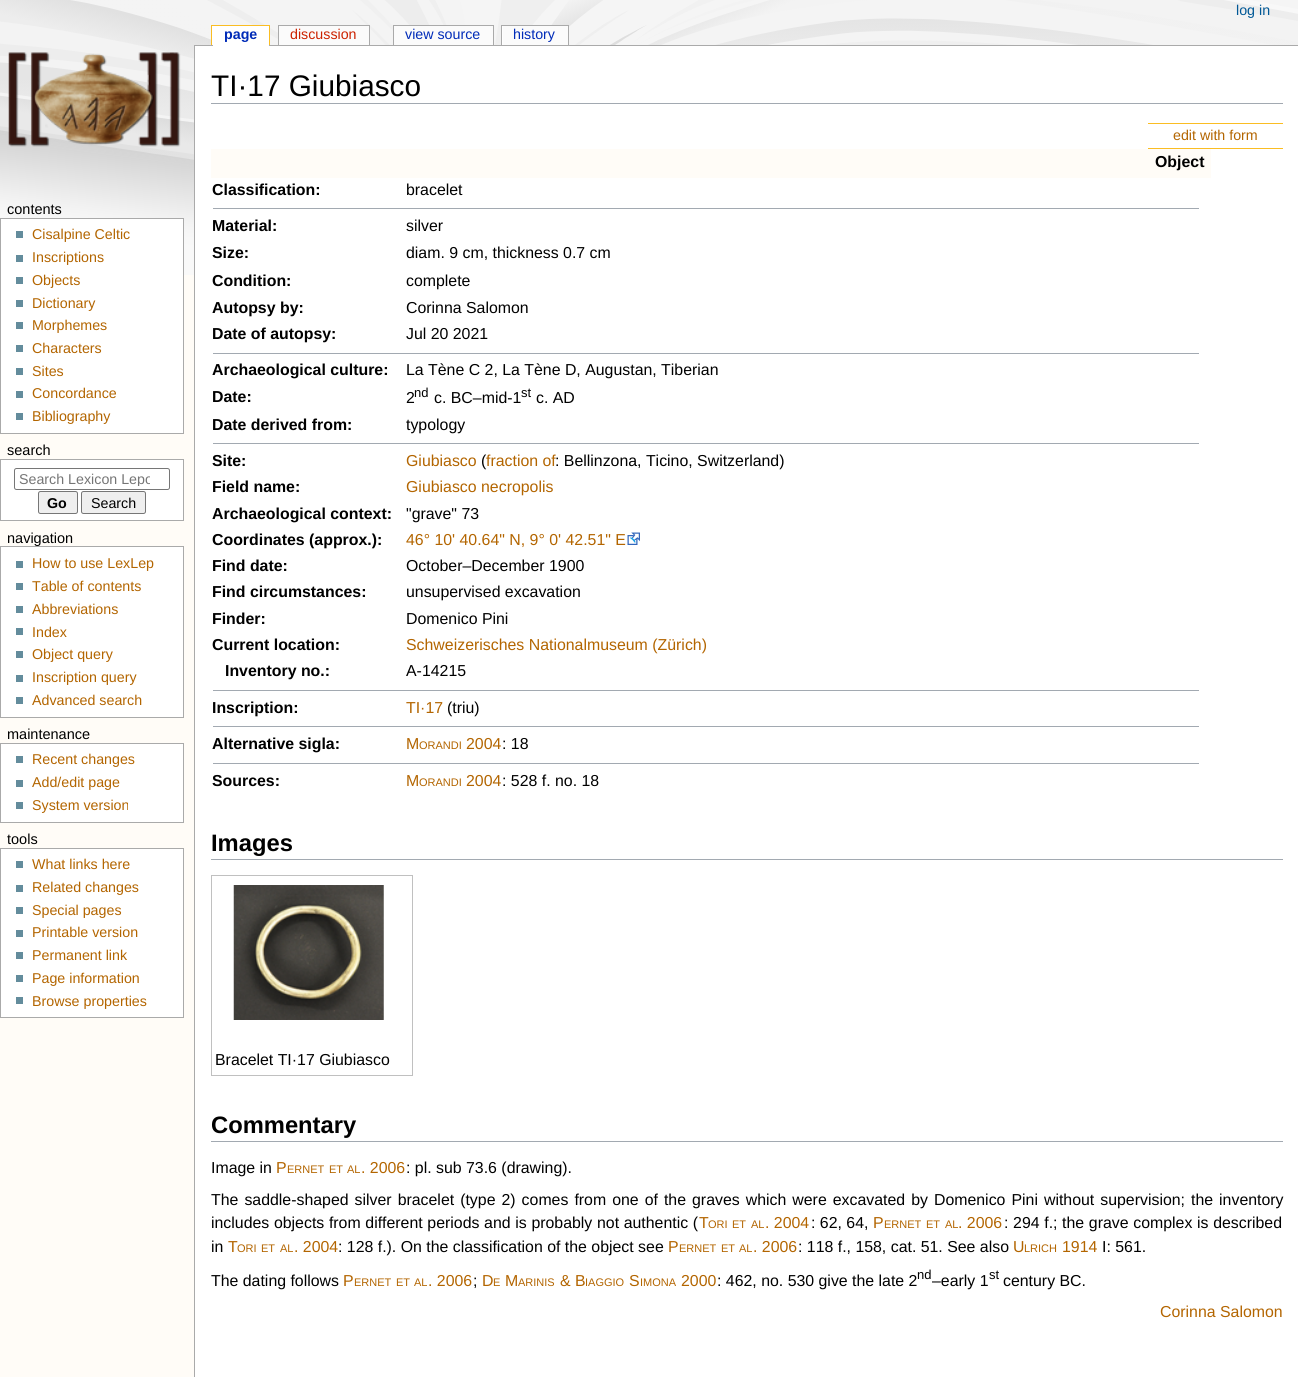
import math
import cairo

surface = cairo.ImageSurface(cairo.FORMAT_RGB24, 1298, 1377)
cr = cairo.Context(surface)
options = cairo.FontOptions()
options.set_hint_metrics(cairo.HINT_METRICS_OFF)
options.set_hint_style(cairo.HINT_STYLE_NONE)
cr.set_font_options(options)
cr.set_miter_limit(4)


def rgb(code):
    cr.set_source_rgb(*(v / 255 for v in bytes.fromhex(code[-6:])))


def tracked(x, y, s, letter, word):
    cr.move_to(x, y)
    for ch in s:
        cr.show_text(ch)
        cr.rel_move_to(letter + word * (ch == ' '), 0)


def rrect(x, y, w, h, r):
    cr.new_sub_path()
    for i, (u, v) in enumerate([(x + w - r, y + h - r), (x + r, y + h - r), (x + r, y + r), (x + w - r, y + r)]):
        cr.arc(u, v, r, i * math.pi / 2, (i + 1) * math.pi / 2)
    cr.close_path()


def image(path, x, y, w, h):
    cr.save()
    cr.set_source_surface(cairo.ImageSurface.create_from_png(path), x, y)
    cr.rectangle(x, y, w, h)
    cr.fill()
    cr.restore()


rgb("#fffcf7")
cr.paint()
image("img/1.png", 0, 0, 1298, 275)
for x, y, w, h, color in [
    (212, 26, 1, 19, "#ffffff"),
    (211, 25, 59, 1, "#fabd23"),
    (269, 25, 1, 20, "#fabd23"),
    (211, 25, 1, 20, "#fabd23"),
    (194, 45, 1104, 1, "#aaaaaa"),
    (213, 26, 56, 20, "#ffffff"),
    (278, 25, 92, 1, "#aaaaaa"),
    (369, 25, 1, 20, "#aaaaaa"),
    (278, 25, 1, 20, "#aaaaaa"),
    (279, 26, 90, 19, "#fbfbfb"),
    (393, 25, 101, 1, "#aaaaaa"),
    (493, 25, 1, 20, "#aaaaaa"),
    (393, 25, 1, 20, "#aaaaaa"),
    (394, 26, 99, 19, "#fbfbfb"),
    (502, 26, 1, 19, "#ffffff"),
    (501, 25, 68, 1, "#aaaaaa"),
    (568, 25, 1, 20, "#aaaaaa"),
    (501, 25, 1, 20, "#aaaaaa"),
    (503, 26, 65, 19, "#fbfbfb"),
]:
    rgb(color)
    cr.rectangle(x, y, w, h)
    cr.fill()
image("img/2.png", 8, 52, 173, 95)
rgb("#ffffff")
cr.rectangle(0.5, 218.5, 183, 215)
cr.fill_preserve()
rgb("#aaaaaa")
cr.set_line_width(1)
cr.stroke()
for x, y, w, h, color in [
    (16, 231, 7, 7, "#638c9c"),
    (16, 255, 7, 7, "#638c9c"),
    (16, 277, 7, 7, "#638c9c"),
    (16, 300, 7, 7, "#638c9c"),
    (16, 322, 7, 7, "#638c9c"),
    (16, 345, 7, 7, "#638c9c"),
    (16, 368, 7, 7, "#638c9c"),
    (16, 391, 7, 7, "#638c9c"),
    (16, 413, 7, 7, "#638c9c"),
]:
    rgb(color)
    cr.rectangle(x, y, w, h)
    cr.fill()
rgb("#ffffff")
cr.rectangle(0.5, 459.5, 183, 61)
cr.fill_preserve()
rgb("#aaaaaa")
cr.stroke()
rrect(14.5, 468.5, 155, 21, 2)
rgb("#767676")
cr.stroke()
rgb("#efefef")
rrect(38.5, 491.5, 39, 22, 2)
cr.fill_preserve()
rgb("#767676")
cr.stroke()
rgb("#efefef")
rrect(81.5, 491.5, 64, 22, 2)
cr.fill_preserve()
rgb("#767676")
cr.stroke()
rgb("#ffffff")
cr.rectangle(0.5, 546.5, 183, 171)
cr.fill_preserve()
rgb("#aaaaaa")
cr.stroke()
for x, y, w, h, color in [
    (16, 561, 7, 7, "#638c9c"),
    (16, 583, 7, 7, "#638c9c"),
    (16, 606, 7, 7, "#638c9c"),
    (16, 628, 7, 7, "#638c9c"),
    (16, 651, 7, 7, "#638c9c"),
    (16, 675, 7, 7, "#638c9c"),
    (16, 697, 7, 7, "#638c9c"),
]:
    rgb(color)
    cr.rectangle(x, y, w, h)
    cr.fill()
rgb("#ffffff")
cr.rectangle(0.5, 743.5, 183, 79)
cr.fill_preserve()
rgb("#aaaaaa")
cr.stroke()
for x, y, w, h, color in [
    (16, 756, 7, 7, "#638c9c"),
    (16, 780, 7, 7, "#638c9c"),
    (16, 802, 7, 7, "#638c9c"),
]:
    rgb(color)
    cr.rectangle(x, y, w, h)
    cr.fill()
rgb("#ffffff")
cr.rectangle(0.5, 848.5, 183, 169)
cr.fill_preserve()
rgb("#aaaaaa")
cr.stroke()
for x, y, w, h, color in [
    (16, 861, 7, 7, "#638c9c"),
    (16, 885, 7, 7, "#638c9c"),
    (16, 907, 7, 7, "#638c9c"),
    (16, 930, 7, 7, "#638c9c"),
    (16, 952, 7, 7, "#638c9c"),
    (16, 975, 7, 7, "#638c9c"),
    (16, 997, 7, 7, "#638c9c"),
    (195, 46, 1103, 1331, "#ffffff"),
    (194, 45, 1, 1332, "#aaaaaa"),
    (211, 103, 1072, 1, "#a2a9b1"),
    (1148, 123, 135, 1, "#fabd23"),
    (1148, 148, 135, 1, "#fabd23"),
    (211, 149, 1000, 29, "#fffcf7"),
    (213, 208, 986, 1, "#a2a9b1"),
    (213, 353, 986, 1, "#a2a9b1"),
    (213, 443, 986, 1, "#a2a9b1"),
]:
    rgb(color)
    cr.rectangle(x, y, w, h)
    cr.fill()
image("img/3.png", 627, 532, 13, 13)
for x, y, w, h, color in [
    (213, 690, 986, 1, "#a2a9b1"),
    (213, 726, 986, 1, "#a2a9b1"),
    (213, 763, 986, 1, "#a2a9b1"),
    (211, 859, 1072, 1, "#a2a9b1"),
]:
    rgb(color)
    cr.rectangle(x, y, w, h)
    cr.fill()
cr.rectangle(211.5, 875.5, 201, 200)
rgb("#c0c0c0")
cr.stroke()
image("img/4.png", 233, 885, 151, 135)
rgb("#a2a9b1")
cr.rectangle(211, 1141, 1072, 1)
cr.fill()
cr.select_font_face("Liberation Sans")
cr.set_font_size(14.25)
rgb("#005896")
cr.move_to(1236, 15)
cr.show_text("log in")
cr.select_font_face("Liberation Sans", cairo.FONT_SLANT_NORMAL, cairo.FONT_WEIGHT_BOLD)
rgb("#002bb8")
cr.move_to(224, 39)
cr.show_text("page")
cr.select_font_face("Liberation Sans")
rgb("#cc2200")
cr.move_to(290, 39)
cr.show_text("discussion")
rgb("#002bb8")
cr.move_to(405, 39)
cr.show_text("view source")
cr.move_to(513, 39)
cr.show_text("history")
cr.set_font_size(14.5)
rgb("#000000")
cr.move_to(7, 214)
cr.show_text("contents")
cr.set_font_size(14.25)
rgb("#b36500")
for x, y, s in [
    (32, 239, "Cisalpine Celtic"),
    (32, 262, "Inscriptions"),
    (32, 285, "Objects"),
    (32, 308, "Dictionary"),
    (32, 330, "Morphemes"),
    (32, 353, "Characters"),
    (32, 376, "Sites"),
    (32, 398, "Concordance"),
    (32, 421, "Bibliography"),
]:
    cr.move_to(x, y)
    cr.show_text(s)
cr.set_font_size(14.5)
rgb("#000000")
cr.move_to(7, 455)
cr.show_text("search")
cr.save()
cr.rectangle(19, 471, 131, 15)
cr.clip()
cr.set_font_size(14.25)
rgb("#757575")
cr.move_to(19, 484)
cr.show_text("Search Lexicon Lepo")
cr.restore()
cr.select_font_face("Liberation Sans", cairo.FONT_SLANT_NORMAL, cairo.FONT_WEIGHT_BOLD)
cr.set_font_size(14.25)
cr.move_to(47, 508)
cr.show_text("Go")
cr.select_font_face("Liberation Sans")
cr.move_to(91, 508)
cr.show_text("Search")
cr.set_font_size(14.5)
cr.move_to(7, 543)
cr.show_text("navigation")
cr.set_font_size(14.25)
rgb("#b36500")
for x, y, s in [
    (32, 568, "How to use LexLep"),
    (32, 591, "Table of contents"),
    (32, 614, "Abbreviations"),
    (32, 637, "Index"),
    (32, 659, "Object query"),
    (32, 682, "Inscription query"),
    (32, 705, "Advanced search"),
]:
    cr.move_to(x, y)
    cr.show_text(s)
cr.set_font_size(14.5)
rgb("#000000")
cr.move_to(7, 739)
cr.show_text("maintenance")
cr.set_font_size(14.25)
rgb("#b36500")
for x, y, s in [
    (32, 764, "Recent changes"),
    (32, 787, "Add/edit page"),
    (32, 810, "System version"),
]:
    cr.move_to(x, y)
    cr.show_text(s)
cr.set_font_size(14.5)
rgb("#000000")
cr.move_to(7, 844)
cr.show_text("tools")
cr.set_font_size(14.25)
rgb("#b36500")
for x, y, s in [
    (32, 869, "What links here"),
    (32, 892, "Related changes"),
    (32, 915, "Special pages"),
    (32, 937, "Printable version"),
    (32, 960, "Permanent link"),
    (32, 983, "Page information"),
    (32, 1006, "Browse properties"),
]:
    cr.move_to(x, y)
    cr.show_text(s)
cr.set_font_size(29.75)
rgb("#000000")
cr.move_to(211, 96)
cr.show_text("TI·17 Giubiasco")
cr.set_font_size(14.25)
rgb("#b36500")
cr.move_to(1173, 140)
cr.show_text("edit with form")
cr.select_font_face("Liberation Sans", cairo.FONT_SLANT_NORMAL, cairo.FONT_WEIGHT_BOLD)
cr.set_font_size(15.88)
rgb("#000000")
cr.move_to(1155, 167)
cr.show_text("Object")
cr.move_to(212, 195)
cr.show_text("Classification:")
cr.select_font_face("Liberation Sans")
cr.move_to(406, 195)
cr.show_text("bracelet")
cr.select_font_face("Liberation Sans", cairo.FONT_SLANT_NORMAL, cairo.FONT_WEIGHT_BOLD)
cr.move_to(212, 231)
cr.show_text("Material:")
cr.select_font_face("Liberation Sans")
cr.move_to(406, 231)
cr.show_text("silver")
cr.select_font_face("Liberation Sans", cairo.FONT_SLANT_NORMAL, cairo.FONT_WEIGHT_BOLD)
cr.move_to(212, 258)
cr.show_text("Size:")
cr.select_font_face("Liberation Sans")
cr.move_to(406, 258)
cr.show_text("diam. 9 cm, thickness 0.7 cm")
cr.select_font_face("Liberation Sans", cairo.FONT_SLANT_NORMAL, cairo.FONT_WEIGHT_BOLD)
cr.move_to(212, 286)
cr.show_text("Condition:")
cr.select_font_face("Liberation Sans")
cr.move_to(406, 286)
cr.show_text("complete")
cr.select_font_face("Liberation Sans", cairo.FONT_SLANT_NORMAL, cairo.FONT_WEIGHT_BOLD)
cr.move_to(212, 313)
cr.show_text("Autopsy by:")
cr.select_font_face("Liberation Sans")
cr.move_to(406, 313)
cr.show_text("Corinna Salomon")
cr.select_font_face("Liberation Sans", cairo.FONT_SLANT_NORMAL, cairo.FONT_WEIGHT_BOLD)
cr.move_to(212, 339)
cr.show_text("Date of autopsy:")
cr.select_font_face("Liberation Sans")
cr.move_to(406, 339)
cr.show_text("Jul 20 2021")
cr.select_font_face("Liberation Sans", cairo.FONT_SLANT_NORMAL, cairo.FONT_WEIGHT_BOLD)
cr.move_to(212, 375)
cr.show_text("Archaeological culture:")
cr.select_font_face("Liberation Sans")
cr.move_to(406, 375)
cr.show_text("La Tène C 2, La Tène D, Augustan, Tiberian")
cr.select_font_face("Liberation Sans", cairo.FONT_SLANT_NORMAL, cairo.FONT_WEIGHT_BOLD)
cr.move_to(212, 402)
cr.show_text("Date:")
cr.select_font_face("Liberation Sans")
cr.move_to(406, 403)
cr.show_text("2")
cr.set_font_size(13)
cr.move_to(414, 397)
cr.show_text("nd")
cr.set_font_size(15.88)
cr.move_to(434, 403)
cr.show_text("c. BC–mid-1")
cr.set_font_size(13)
cr.move_to(521, 397)
cr.show_text("st")
cr.set_font_size(15.88)
cr.move_to(536, 403)
cr.show_text("c. AD")
cr.select_font_face("Liberation Sans", cairo.FONT_SLANT_NORMAL, cairo.FONT_WEIGHT_BOLD)
cr.move_to(212, 430)
cr.show_text("Date derived from:")
cr.select_font_face("Liberation Sans")
cr.move_to(406, 430)
cr.show_text("typology")
cr.select_font_face("Liberation Sans", cairo.FONT_SLANT_NORMAL, cairo.FONT_WEIGHT_BOLD)
cr.move_to(212, 466)
cr.show_text("Site:")
cr.select_font_face("Liberation Sans")
rgb("#b36500")
cr.move_to(406, 466)
cr.show_text("Giubiasco")
rgb("#000000")
cr.move_to(481, 466)
cr.show_text("(")
rgb("#b36500")
cr.move_to(486, 466)
cr.show_text("fraction of")
rgb("#000000")
cr.move_to(555, 466)
cr.show_text(": Bellinzona, Ticino, Switzerland)")
cr.select_font_face("Liberation Sans", cairo.FONT_SLANT_NORMAL, cairo.FONT_WEIGHT_BOLD)
cr.move_to(212, 492)
cr.show_text("Field name:")
cr.select_font_face("Liberation Sans")
rgb("#b36500")
cr.move_to(406, 492)
cr.show_text("Giubiasco necropolis")
cr.select_font_face("Liberation Sans", cairo.FONT_SLANT_NORMAL, cairo.FONT_WEIGHT_BOLD)
rgb("#000000")
cr.move_to(212, 519)
cr.show_text("Archaeological context:")
cr.select_font_face("Liberation Sans")
cr.move_to(406, 519)
cr.show_text("\"grave\" 73")
cr.select_font_face("Liberation Sans", cairo.FONT_SLANT_NORMAL, cairo.FONT_WEIGHT_BOLD)
cr.move_to(212, 545)
cr.show_text("Coordinates (approx.):")
cr.select_font_face("Liberation Sans")
rgb("#b36500")
cr.move_to(406, 545)
cr.show_text("46° 10' 40.64\" N, 9° 0' 42.51\" E")
cr.select_font_face("Liberation Sans", cairo.FONT_SLANT_NORMAL, cairo.FONT_WEIGHT_BOLD)
rgb("#000000")
cr.move_to(212, 571)
cr.show_text("Find date:")
cr.select_font_face("Liberation Sans")
cr.move_to(406, 571)
cr.show_text("October–December 1900")
cr.select_font_face("Liberation Sans", cairo.FONT_SLANT_NORMAL, cairo.FONT_WEIGHT_BOLD)
cr.move_to(212, 597)
cr.show_text("Find circumstances:")
cr.select_font_face("Liberation Sans")
cr.move_to(406, 597)
cr.show_text("unsupervised excavation")
cr.select_font_face("Liberation Sans", cairo.FONT_SLANT_NORMAL, cairo.FONT_WEIGHT_BOLD)
cr.move_to(212, 624)
cr.show_text("Finder:")
cr.select_font_face("Liberation Sans")
cr.move_to(406, 624)
cr.show_text("Domenico Pini")
cr.select_font_face("Liberation Sans", cairo.FONT_SLANT_NORMAL, cairo.FONT_WEIGHT_BOLD)
cr.move_to(212, 650)
cr.show_text("Current location:")
cr.select_font_face("Liberation Sans")
rgb("#b36500")
cr.move_to(406, 650)
cr.show_text("Schweizerisches Nationalmuseum (Zürich)")
cr.select_font_face("Liberation Sans", cairo.FONT_SLANT_NORMAL, cairo.FONT_WEIGHT_BOLD)
rgb("#000000")
cr.move_to(225, 676)
cr.show_text("Inventory no.:")
cr.select_font_face("Liberation Sans")
cr.move_to(406, 676)
cr.show_text("A-14215")
cr.select_font_face("Liberation Sans", cairo.FONT_SLANT_NORMAL, cairo.FONT_WEIGHT_BOLD)
cr.move_to(212, 713)
cr.show_text("Inscription:")
cr.select_font_face("Liberation Sans")
rgb("#b36500")
cr.move_to(406, 713)
cr.show_text("TI·17")
rgb("#000000")
cr.move_to(447, 713)
cr.show_text("(triu)")
cr.select_font_face("Liberation Sans", cairo.FONT_SLANT_NORMAL, cairo.FONT_WEIGHT_BOLD)
cr.move_to(212, 749)
cr.show_text("Alternative sigla:")
cr.select_font_face("Liberation Sans")
rgb("#b36500")
cr.move_to(406, 749)
cr.show_text("M")
cr.set_font_size(11)
cr.move_to(419, 749)
cr.show_text("ORANDI")
cr.set_font_size(15.88)
cr.move_to(466, 749)
cr.show_text("2004")
rgb("#000000")
cr.move_to(502, 749)
cr.show_text(": 18")
cr.select_font_face("Liberation Sans", cairo.FONT_SLANT_NORMAL, cairo.FONT_WEIGHT_BOLD)
cr.move_to(212, 786)
cr.show_text("Sources:")
cr.select_font_face("Liberation Sans")
rgb("#b36500")
cr.move_to(406, 786)
cr.show_text("M")
cr.set_font_size(11)
cr.move_to(419, 786)
cr.show_text("ORANDI")
cr.set_font_size(15.88)
cr.move_to(466, 786)
cr.show_text("2004")
rgb("#000000")
cr.move_to(502, 786)
cr.show_text(": 528 f. no. 18")
cr.select_font_face("Liberation Sans", cairo.FONT_SLANT_NORMAL, cairo.FONT_WEIGHT_BOLD)
cr.set_font_size(23.75)
cr.move_to(211, 851)
cr.show_text("Images")
cr.select_font_face("Liberation Sans")
cr.set_font_size(15.88)
cr.move_to(215, 1065)
cr.show_text("Bracelet TI·17 Giubiasco")
cr.select_font_face("Liberation Sans", cairo.FONT_SLANT_NORMAL, cairo.FONT_WEIGHT_BOLD)
cr.set_font_size(23.75)
cr.move_to(211, 1133)
cr.show_text("Commentary")
cr.select_font_face("Liberation Sans")
cr.set_font_size(15.88)
cr.move_to(211, 1173)
cr.show_text("Image in")
rgb("#b36500")
cr.move_to(276, 1173)
cr.show_text("P")
cr.set_font_size(11)
for x, y, s in [
    (287, 1173, "ERNET"),
    (329, 1173, "ET"),
    (347, 1173, "AL"),
]:
    cr.move_to(x, y)
    cr.show_text(s)
cr.set_font_size(15.88)
cr.move_to(361, 1173)
cr.show_text(". 2006")
rgb("#000000")
cr.move_to(406, 1173)
cr.show_text(": pl. sub 73.6 (drawing).")
tracked(211, 1205, "The saddle-shaped silver bracelet (type 2) comes from one of the graves which were excavated by Domenico Pini without supervision; the inventory", 0, 1.6)
tracked(211, 1228, "includes objects from different periods and is probably not authentic (", 0, 0.25)
rgb("#b36500")
cr.move_to(699, 1228)
cr.show_text("T")
cr.set_font_size(11)
for x, y, s in [
    (708, 1228, "ORI"),
    (732, 1228, "ET"),
    (751, 1228, "AL"),
]:
    cr.move_to(x, y)
    cr.show_text(s)
cr.set_font_size(15.88)
cr.move_to(765, 1228)
cr.show_text(". 2004")
rgb("#000000")
cr.move_to(811, 1228)
cr.show_text(": 62, 64,")
rgb("#b36500")
cr.move_to(873, 1228)
cr.show_text("P")
cr.set_font_size(11)
for x, y, s in [
    (884, 1228, "ERNET"),
    (926, 1228, "ET"),
    (945, 1228, "AL"),
]:
    cr.move_to(x, y)
    cr.show_text(s)
cr.set_font_size(15.88)
cr.move_to(958, 1228)
cr.show_text(". 2006")
rgb("#000000")
tracked(1004, 1228, ": 294 f.; the grave complex is described", 0, 0.25)
cr.move_to(211, 1252)
cr.show_text("in")
rgb("#b36500")
cr.move_to(228, 1252)
cr.show_text("T")
cr.set_font_size(11)
for x, y, s in [
    (237, 1252, "ORI"),
    (261, 1252, "ET"),
    (280, 1252, "AL"),
]:
    cr.move_to(x, y)
    cr.show_text(s)
cr.set_font_size(15.88)
cr.move_to(294, 1252)
cr.show_text(". 2004")
rgb("#000000")
cr.move_to(338, 1252)
cr.show_text(": 128 f.). On the classification of the object see")
rgb("#b36500")
cr.move_to(668, 1252)
cr.show_text("P")
cr.set_font_size(11)
for x, y, s in [
    (679, 1252, "ERNET"),
    (721, 1252, "ET"),
    (739, 1252, "AL"),
]:
    cr.move_to(x, y)
    cr.show_text(s)
cr.set_font_size(15.88)
cr.move_to(753, 1252)
cr.show_text(". 2006")
rgb("#000000")
cr.move_to(798, 1252)
cr.show_text(": 118 f., 158, cat. 51. See also")
rgb("#b36500")
cr.move_to(1013, 1252)
cr.show_text("U")
cr.set_font_size(11)
cr.move_to(1024, 1252)
cr.show_text("LRICH")
cr.set_font_size(15.88)
cr.move_to(1062, 1252)
cr.show_text("1914")
rgb("#000000")
cr.move_to(1102, 1252)
cr.show_text("I: 561.")
cr.move_to(211, 1286)
cr.show_text("The dating follows")
rgb("#b36500")
cr.move_to(343, 1286)
cr.show_text("P")
cr.set_font_size(11)
for x, y, s in [
    (354, 1286, "ERNET"),
    (396, 1286, "ET"),
    (414, 1286, "AL"),
]:
    cr.move_to(x, y)
    cr.show_text(s)
cr.set_font_size(15.88)
cr.move_to(428, 1286)
cr.show_text(". 2006")
rgb("#000000")
cr.move_to(473, 1286)
cr.show_text(";")
rgb("#b36500")
cr.move_to(482, 1286)
cr.show_text("D")
cr.set_font_size(11)
cr.move_to(493, 1286)
cr.show_text("E")
cr.set_font_size(15.88)
cr.move_to(505, 1286)
cr.show_text("M")
cr.set_font_size(11)
cr.move_to(518, 1286)
cr.show_text("ARINIS")
cr.set_font_size(15.88)
cr.move_to(560, 1286)
cr.show_text("& B")
cr.set_font_size(11)
cr.move_to(585, 1286)
cr.show_text("IAGGIO")
cr.set_font_size(15.88)
cr.move_to(629, 1286)
cr.show_text("S")
cr.set_font_size(11)
cr.move_to(640, 1286)
cr.show_text("IMONA")
cr.set_font_size(15.88)
cr.move_to(681, 1286)
cr.show_text("2000")
rgb("#000000")
cr.move_to(717, 1286)
cr.show_text(": 462, no. 530 give the late 2")
cr.set_font_size(13)
cr.move_to(917, 1279)
cr.show_text("nd")
cr.set_font_size(15.88)
cr.move_to(932, 1286)
cr.show_text("–early 1")
cr.set_font_size(13)
cr.move_to(989, 1279)
cr.show_text("st")
cr.set_font_size(15.88)
cr.move_to(1003, 1286)
cr.show_text("century BC.")
rgb("#b36500")
cr.move_to(1160, 1317)
cr.show_text("Corinna Salomon")
surface.write_to_png("page.png")
